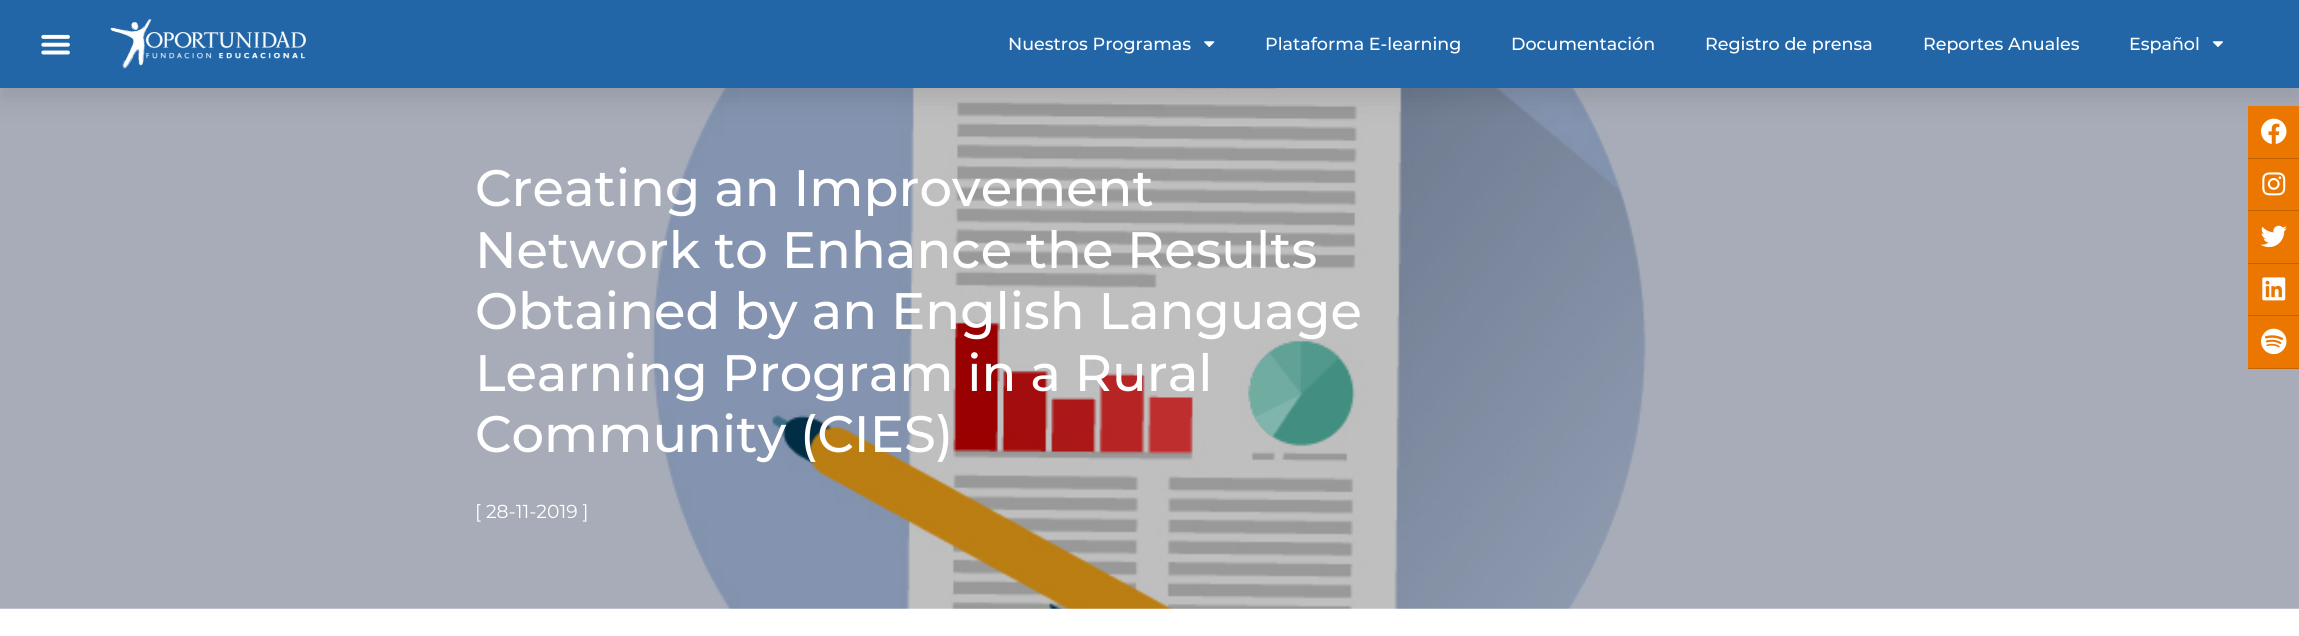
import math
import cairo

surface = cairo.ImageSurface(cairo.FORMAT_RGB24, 2299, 636)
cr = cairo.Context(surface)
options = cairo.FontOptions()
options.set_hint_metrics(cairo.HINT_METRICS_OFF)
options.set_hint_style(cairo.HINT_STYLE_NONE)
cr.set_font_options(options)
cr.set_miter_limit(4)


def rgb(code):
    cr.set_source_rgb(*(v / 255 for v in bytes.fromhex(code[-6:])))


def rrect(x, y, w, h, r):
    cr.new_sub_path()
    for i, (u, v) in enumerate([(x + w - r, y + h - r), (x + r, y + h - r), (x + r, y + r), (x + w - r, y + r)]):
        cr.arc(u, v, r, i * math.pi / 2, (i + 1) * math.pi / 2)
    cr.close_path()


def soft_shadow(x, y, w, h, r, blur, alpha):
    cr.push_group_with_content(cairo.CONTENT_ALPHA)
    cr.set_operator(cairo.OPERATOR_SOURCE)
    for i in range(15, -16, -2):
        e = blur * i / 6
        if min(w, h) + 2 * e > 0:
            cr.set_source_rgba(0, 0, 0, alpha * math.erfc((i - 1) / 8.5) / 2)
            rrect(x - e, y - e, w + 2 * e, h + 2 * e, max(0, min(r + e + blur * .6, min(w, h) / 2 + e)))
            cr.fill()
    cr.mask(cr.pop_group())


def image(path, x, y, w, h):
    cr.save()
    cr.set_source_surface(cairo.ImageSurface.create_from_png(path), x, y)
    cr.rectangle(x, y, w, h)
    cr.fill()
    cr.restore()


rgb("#ffffff")
cr.paint()
image("img/10.png", 0, 88, 2299, 521)
rgb("#000000")
soft_shadow(0, 13, 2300, 87, 0, 12.5, 0.1)
rgb("#2266a7")
cr.rectangle(0, 0, 2299, 88)
cr.fill()
image("img/1.png", 41, 34, 29, 21)
image("img/2.png", 110, 19, 196, 50)
image("img/3.png", 1204, 41, 11, 6)
image("img/4.png", 2212, 41, 11, 6)
rgb("#ec7700")
cr.rectangle(2248, 106, 51, 52)
cr.fill()
rgb("#c36200")
cr.rectangle(2248, 158, 51, 1)
cr.fill()
image("img/5.png", 2261, 118, 26, 26)
rgb("#ec7700")
cr.rectangle(2248, 159, 51, 51)
cr.fill()
rgb("#c36200")
cr.rectangle(2248, 210, 51, 1)
cr.fill()
image("img/6.png", 2262, 172, 24, 24)
rgb("#ec7700")
cr.rectangle(2248, 211, 51, 52)
cr.fill()
rgb("#c36200")
cr.rectangle(2248, 263, 51, 1)
cr.fill()
image("img/7.png", 2260, 225, 27, 23)
rgb("#ec7700")
cr.rectangle(2248, 264, 51, 51)
cr.fill()
rgb("#c36200")
cr.rectangle(2248, 315, 51, 1)
cr.fill()
image("img/8.png", 2262, 277, 24, 24)
rgb("#ec7700")
cr.rectangle(2248, 316, 51, 52)
cr.fill()
rgb("#c36200")
cr.rectangle(2248, 368, 51, 1)
cr.fill()
image("img/9.png", 2261, 328, 26, 27)
cr.select_font_face("Montserrat Medium")
cr.set_font_size(17.5)
rgb("#ffffff")
for x, y, s in [
    (1008, 50, "Nuestros Programas"),
    (1265, 50, "Plataforma E-learning"),
    (1511, 50, "Documentación"),
    (1705, 50, "Registro de prensa"),
    (1923, 50, "Reportes Anuales"),
    (2129, 50, "Español"),
]:
    cr.move_to(x, y)
    cr.show_text(s)
cr.set_font_size(51.25)
for x, y, s in [
    (475, 206, "Creating an Improvement"),
    (475, 268, "Network to Enhance the Results"),
    (475, 329, "Obtained by an English Language"),
    (475, 391, "Learning Program in a Rural"),
    (475, 452, "Community (CIES)"),
]:
    cr.move_to(x, y)
    cr.show_text(s)
cr.select_font_face("Montserrat")
cr.set_font_size(18.75)
cr.move_to(475, 518)
cr.show_text("[ 28-11-2019 ]")
surface.write_to_png("page.png")
